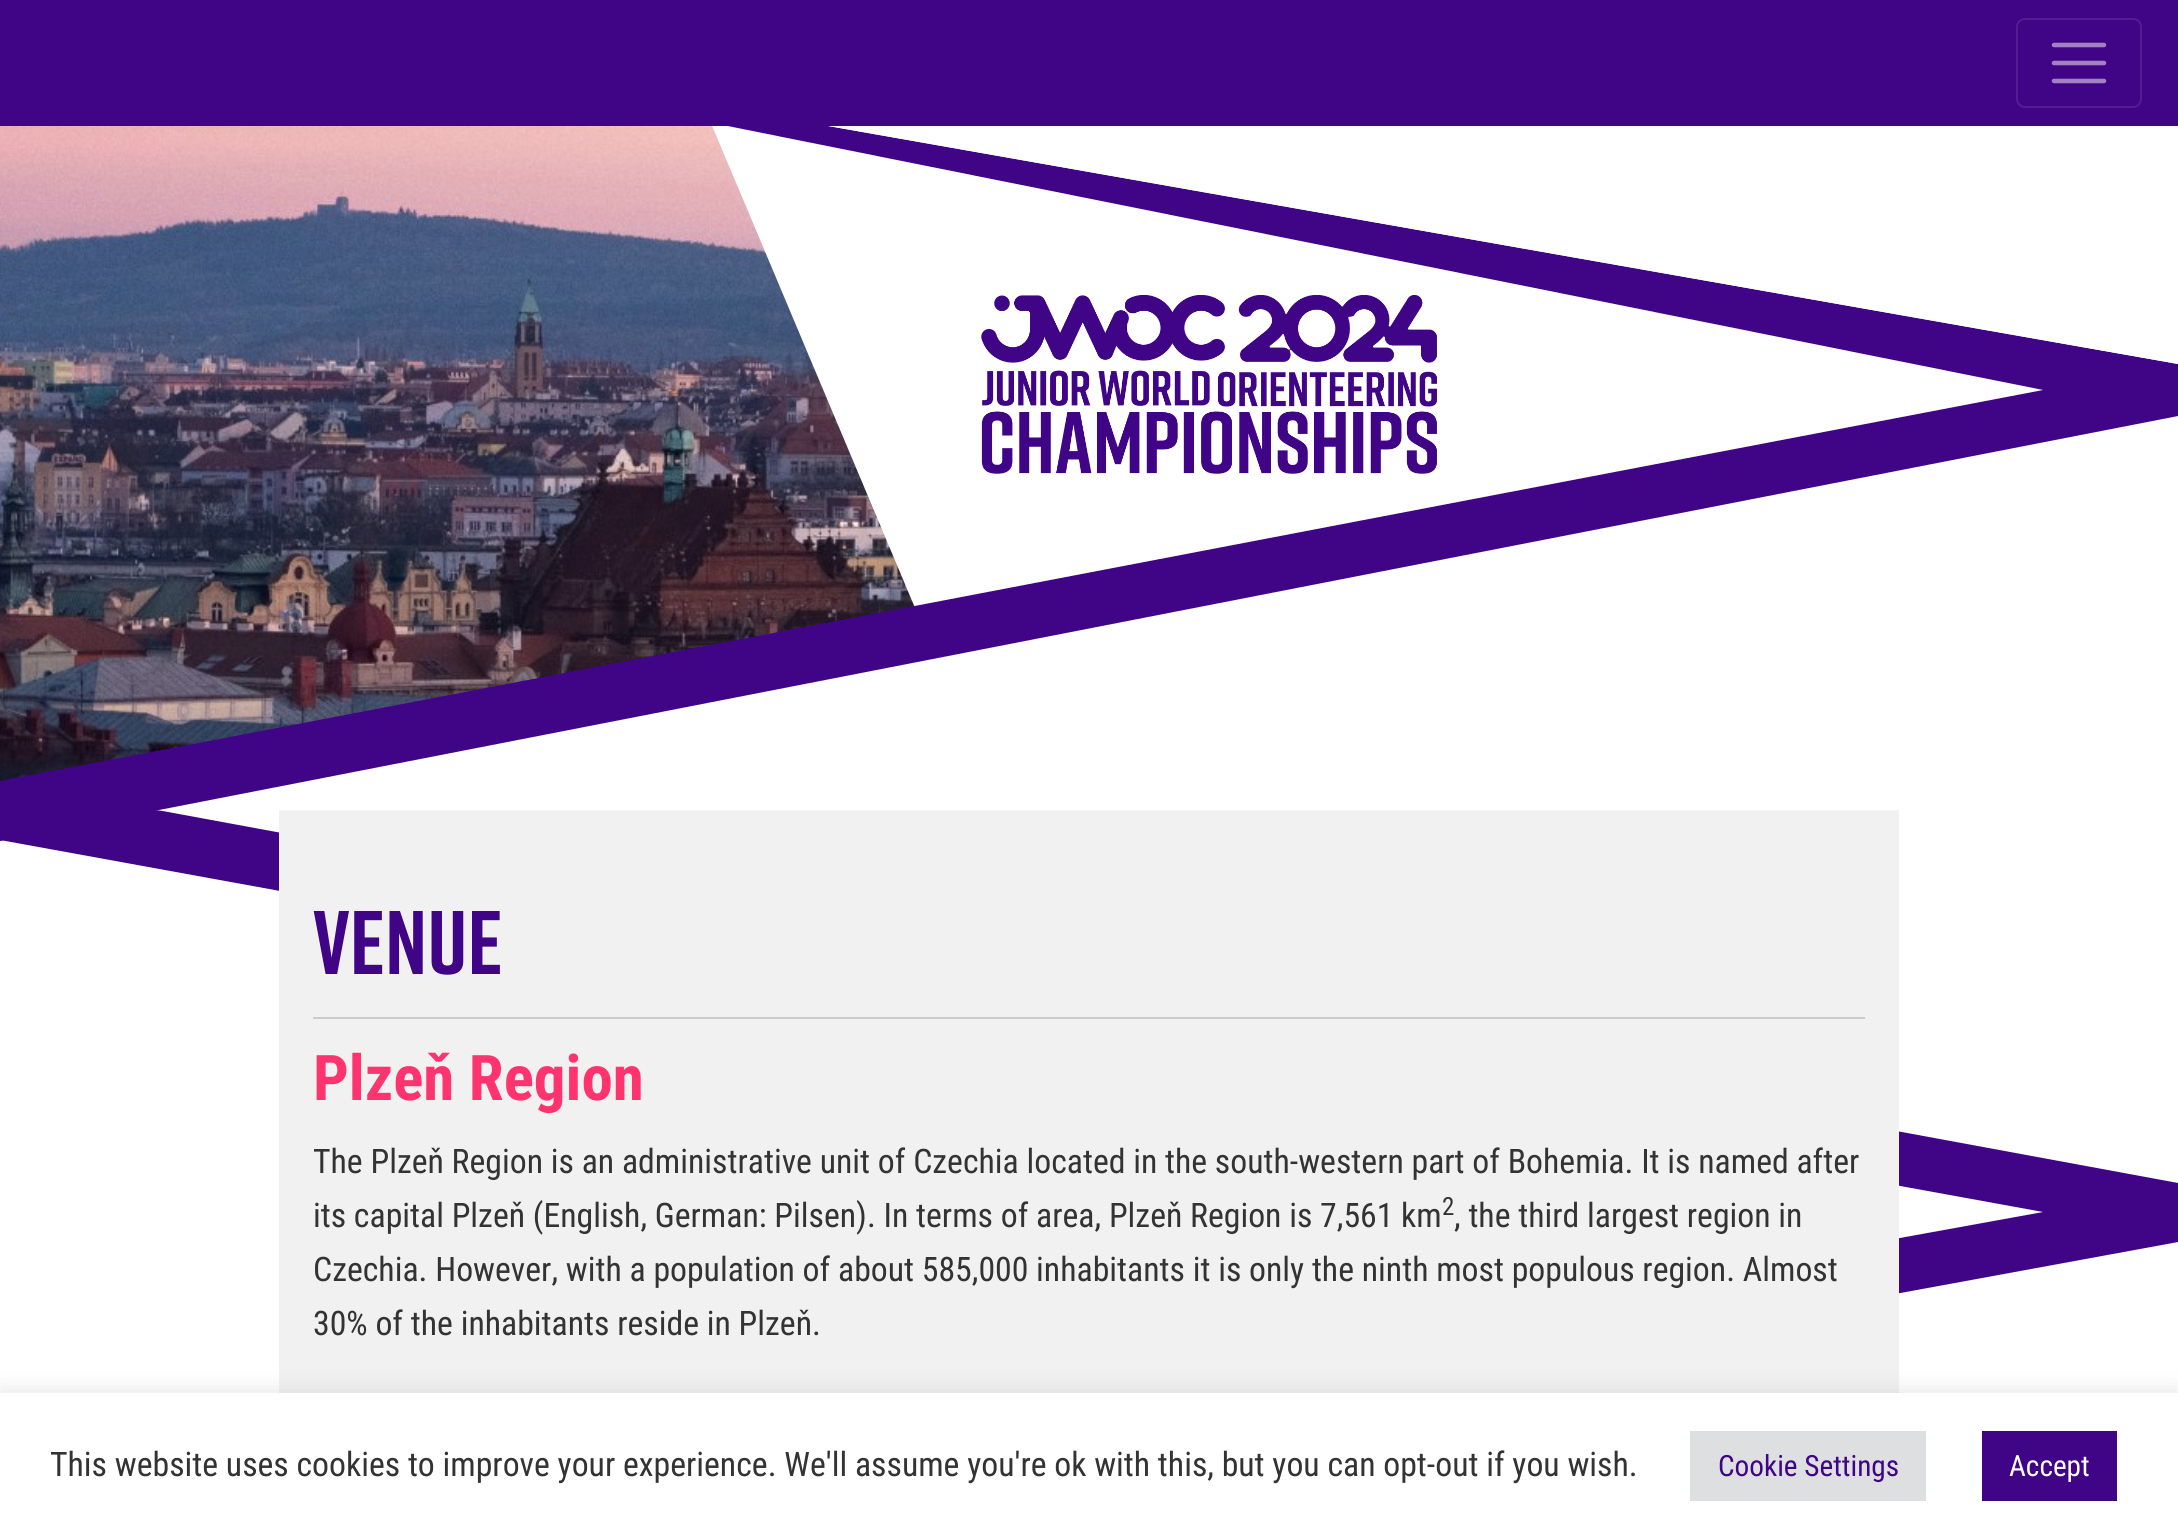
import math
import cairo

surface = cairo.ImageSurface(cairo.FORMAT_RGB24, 2178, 1537)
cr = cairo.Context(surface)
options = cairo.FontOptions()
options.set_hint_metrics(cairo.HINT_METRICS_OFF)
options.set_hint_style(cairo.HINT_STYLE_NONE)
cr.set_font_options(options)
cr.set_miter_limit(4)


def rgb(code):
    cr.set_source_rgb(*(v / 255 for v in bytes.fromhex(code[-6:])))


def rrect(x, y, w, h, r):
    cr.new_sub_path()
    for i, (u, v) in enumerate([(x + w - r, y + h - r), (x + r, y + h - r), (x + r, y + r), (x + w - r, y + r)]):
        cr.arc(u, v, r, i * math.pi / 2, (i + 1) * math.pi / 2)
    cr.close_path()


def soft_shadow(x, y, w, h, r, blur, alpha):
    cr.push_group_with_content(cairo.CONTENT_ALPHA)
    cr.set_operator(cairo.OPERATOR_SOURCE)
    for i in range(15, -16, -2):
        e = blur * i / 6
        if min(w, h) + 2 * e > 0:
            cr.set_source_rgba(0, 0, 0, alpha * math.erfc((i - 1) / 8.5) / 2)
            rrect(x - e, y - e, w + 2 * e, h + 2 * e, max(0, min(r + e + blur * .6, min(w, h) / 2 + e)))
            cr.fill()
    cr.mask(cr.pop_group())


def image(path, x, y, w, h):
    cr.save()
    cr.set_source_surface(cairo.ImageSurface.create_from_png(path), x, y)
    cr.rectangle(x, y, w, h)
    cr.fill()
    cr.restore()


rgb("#ffffff")
cr.paint()
rgb("#400486")
cr.new_path()
cr.move_to(0, 840)
cr.line_to(0, 781)
cr.line_to(2178, 1183)
cr.line_to(2178, 1242)
cr.line_to(0, 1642)
cr.line_to(0, 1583)
cr.line_to(2043, 1212)
cr.close_path()
cr.fill()
rgb("#f1f1f1")
cr.rectangle(279, 810, 1620, 583)
cr.fill()
image("img/1.png", 0, 126, 2052, 685)
rgb("#ffffff")
cr.new_path()
cr.move_to(705, 109)
cr.line_to(2178, 377)
cr.line_to(918, 615)
cr.close_path()
cr.fill()
rgb("#400486")
cr.new_path()
cr.move_to(0, -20)
cr.line_to(2178, 364)
cr.line_to(2178, 416)
cr.line_to(0, 841)
cr.line_to(0, 781)
cr.line_to(2043, 390)
cr.close_path()
cr.fill()
rgb("#ffffff")
cr.new_path()
cr.move_to(0, -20)
cr.line_to(2178, -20)
cr.line_to(2178, 364)
cr.close_path()
cr.fill()
image("img/2.png", 981, 295, 456, 179)
rgb("#400486")
cr.rectangle(0, 0, 2178, 126)
cr.fill()
rrect(2017, 19, 124, 88, 8)
rgb("#531d92")
cr.stroke()
cr.new_path()
cr.move_to(2054, 45)
cr.line_to(2104, 45)
cr.move_to(2054, 63)
cr.line_to(2104, 63)
cr.move_to(2054, 81)
cr.line_to(2104, 81)
rgb("#a082c3")
cr.set_line_width(4.5)
cr.set_line_cap(cairo.LINE_CAP_ROUND)
cr.stroke()
rgb("#cccccc")
cr.rectangle(313, 1017, 1552, 2)
cr.fill()
rgb("#acabab")
soft_shadow(0, 1391, 2178, 146, 0, 11, 0.3)
for x, y, w, h, color in [
    (0, 1393, 2178, 144, "#ffffff"),
    (1690, 1431, 236, 70, "#dedfe0"),
    (1982, 1431, 135, 70, "#400486"),
]:
    rgb(color)
    cr.rectangle(x, y, w, h)
    cr.fill()
cr.select_font_face("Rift", cairo.FONT_SLANT_NORMAL, cairo.FONT_WEIGHT_BOLD)
cr.set_font_size(90)
cr.move_to(313, 974)
cr.show_text("Venue")
cr.select_font_face("Roboto Condensed", cairo.FONT_SLANT_NORMAL, cairo.FONT_WEIGHT_BOLD)
cr.set_font_size(63)
rgb("#ff336d")
cr.move_to(313, 1100)
cr.show_text("Plzeň Region")
cr.select_font_face("Roboto Condensed")
cr.set_font_size(33.75)
rgb("#333333")
cr.move_to(313, 1173)
cr.show_text("The Plzeň Region is an administrative unit of Czechia located in the south-western part of Bohemia. It is named after")
cr.move_to(313, 1227)
cr.show_text("its capital Plzeň (English, German: Pilsen). In terms of area, Plzeň Region is 7,561 km")
cr.set_font_size(25)
cr.move_to(1442, 1215)
cr.show_text("2")
cr.set_font_size(33.75)
for x, y, s in [
    (1454, 1227, ", the third largest region in"),
    (313, 1281, "Czechia. However, with a population of about 585,000 inhabitants it is only the ninth most populous region. Almost"),
    (313, 1335, "30% of the inhabitants reside in Plzeň."),
    (50, 1476, "This website uses cookies to improve your experience. We'll assume you're ok with this, but you can opt-out if you wish."),
]:
    cr.move_to(x, y)
    cr.show_text(s)
cr.set_font_size(29.25)
rgb("#400486")
cr.move_to(1718, 1476)
cr.show_text("Cookie Settings")
rgb("#ffffff")
cr.move_to(2009, 1476)
cr.show_text("Accept")
surface.write_to_png("page.png")
